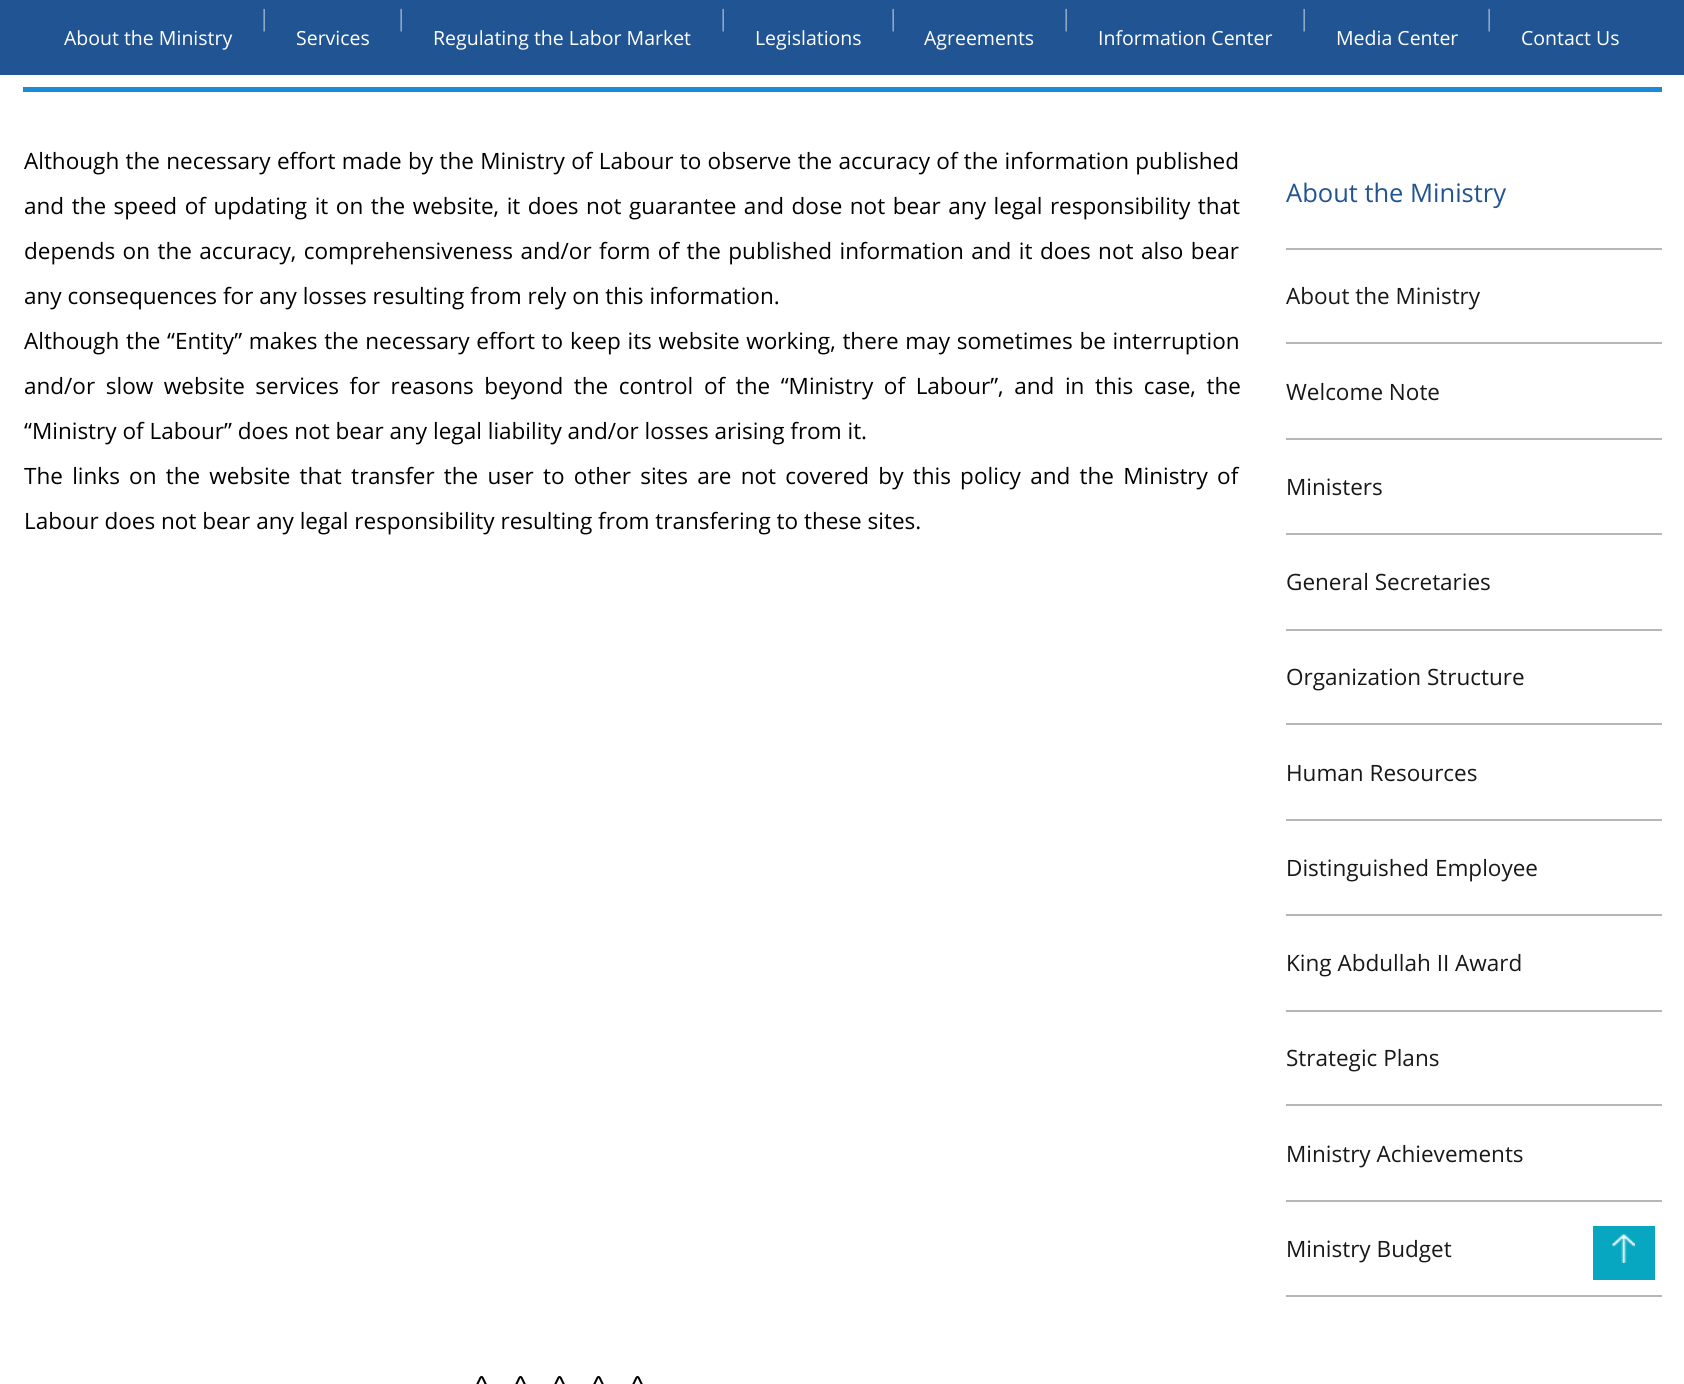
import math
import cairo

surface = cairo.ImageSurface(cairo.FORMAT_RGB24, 1684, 1384)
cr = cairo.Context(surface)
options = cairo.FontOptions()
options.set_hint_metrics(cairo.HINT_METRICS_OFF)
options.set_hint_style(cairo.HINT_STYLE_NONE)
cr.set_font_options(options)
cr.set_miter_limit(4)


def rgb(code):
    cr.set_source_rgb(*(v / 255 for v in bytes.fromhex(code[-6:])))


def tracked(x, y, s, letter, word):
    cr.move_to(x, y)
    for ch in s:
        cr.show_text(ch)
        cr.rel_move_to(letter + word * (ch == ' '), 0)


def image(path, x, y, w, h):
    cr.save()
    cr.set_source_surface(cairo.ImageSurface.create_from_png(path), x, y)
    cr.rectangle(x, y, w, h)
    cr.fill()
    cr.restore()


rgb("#ffffff")
cr.paint()
for x, y, w, h, color in [
    (0, 0, 1684, 75, "#215493"),
    (23, 87, 1639, 5, "#1b8ad7"),
    (1286, 248, 376, 2, "#b7b7b7"),
    (1286, 342, 376, 2, "#b7b7b7"),
    (1286, 438, 376, 2, "#b7b7b7"),
    (1286, 533, 376, 2, "#b7b7b7"),
    (1286, 629, 376, 2, "#b7b7b7"),
    (1286, 723, 376, 2, "#b7b7b7"),
    (1286, 819, 376, 2, "#b7b7b7"),
    (1286, 914, 376, 2, "#b7b7b7"),
    (1286, 1010, 376, 2, "#b7b7b7"),
    (1286, 1104, 376, 2, "#b7b7b7"),
    (1286, 1200, 376, 2, "#b7b7b7"),
    (1286, 1295, 376, 2, "#b7b7b7"),
    (1593, 1226, 62, 54, "#07a7c1"),
]:
    rgb(color)
    cr.rectangle(x, y, w, h)
    cr.fill()
image("img/1.png", 1612, 1234, 23, 29)
image("img/2.png", 476, 1376, 11, 8)
image("img/2.png", 515, 1376, 11, 8)
image("img/2.png", 554, 1376, 11, 8)
image("img/2.png", 593, 1376, 11, 8)
image("img/2.png", 632, 1376, 11, 8)
cr.select_font_face("Open Sans")
cr.set_font_size(22.5)
rgb("#90aac9")
for x, y, s in [
    (258, 26, "|"),
    (395, 26, "|"),
    (717, 26, "|"),
    (887, 26, "|"),
    (1060, 26, "|"),
    (1298, 26, "|"),
    (1483, 26, "|"),
]:
    cr.move_to(x, y)
    cr.show_text(s)
cr.set_font_size(19.5)
rgb("#ffffff")
for x, y, s in [
    (64, 45, "About the Ministry"),
    (296, 45, "Services"),
    (433, 45, "Regulating the Labor Market"),
    (755, 45, "Legislations"),
    (924, 45, "Agreements"),
    (1098, 45, "Information Center"),
    (1336, 45, "Media Center"),
    (1521, 45, "Contact Us"),
]:
    cr.move_to(x, y)
    cr.show_text(s)
cr.set_font_size(22.5)
rgb("#000000")
tracked(24, 169, "Although the necessary effort made by the Ministry of Labour to observe the accuracy of the information published", 0, 0.5)
tracked(24, 214, "and the speed of updating it on the website, it does not guarantee and dose not bear any legal responsibility that", 0, 1.7)
tracked(24, 259, "depends on the accuracy, comprehensiveness and/or form of the published information and it does not also bear", 0, 1.6)
cr.move_to(24, 304)
cr.show_text("any consequences for any losses resulting from rely on this information.")
tracked(24, 349, "Although the “Entity” makes the necessary effort to keep its website working, there may sometimes be interruption", 0, 0.9)
tracked(24, 394, "and/or slow website services for reasons beyond the control of the “Ministry of Labour”, and in this case, the", 0, 4.75)
cr.move_to(24, 439)
cr.show_text("“Ministry of Labour” does not bear any legal liability and/or losses arising from it.")
tracked(24, 484, "The links on the website that transfer the user to other sites are not covered by this policy and the Ministry of", 0, 3.4)
cr.move_to(24, 529)
cr.show_text("Labour does not bear any legal responsibility resulting from transfering to these sites.")
cr.set_font_size(25.5)
rgb("#215493")
cr.move_to(1286, 202)
cr.show_text("About the Ministry")
cr.set_font_size(22.5)
rgb("#181818")
for x, y, s in [
    (1286, 304, "About the Ministry"),
    (1286, 400, "Welcome Note"),
    (1286, 495, "Ministers"),
    (1286, 590, "General Secretaries"),
    (1286, 685, "Organization Structure"),
    (1286, 781, "Human Resources"),
    (1286, 876, "Distinguished Employee"),
    (1286, 971, "King Abdullah II Award"),
    (1286, 1066, "Strategic Plans"),
    (1286, 1162, "Ministry Achievements"),
    (1286, 1257, "Ministry Budget"),
]:
    cr.move_to(x, y)
    cr.show_text(s)
surface.write_to_png("page.png")
